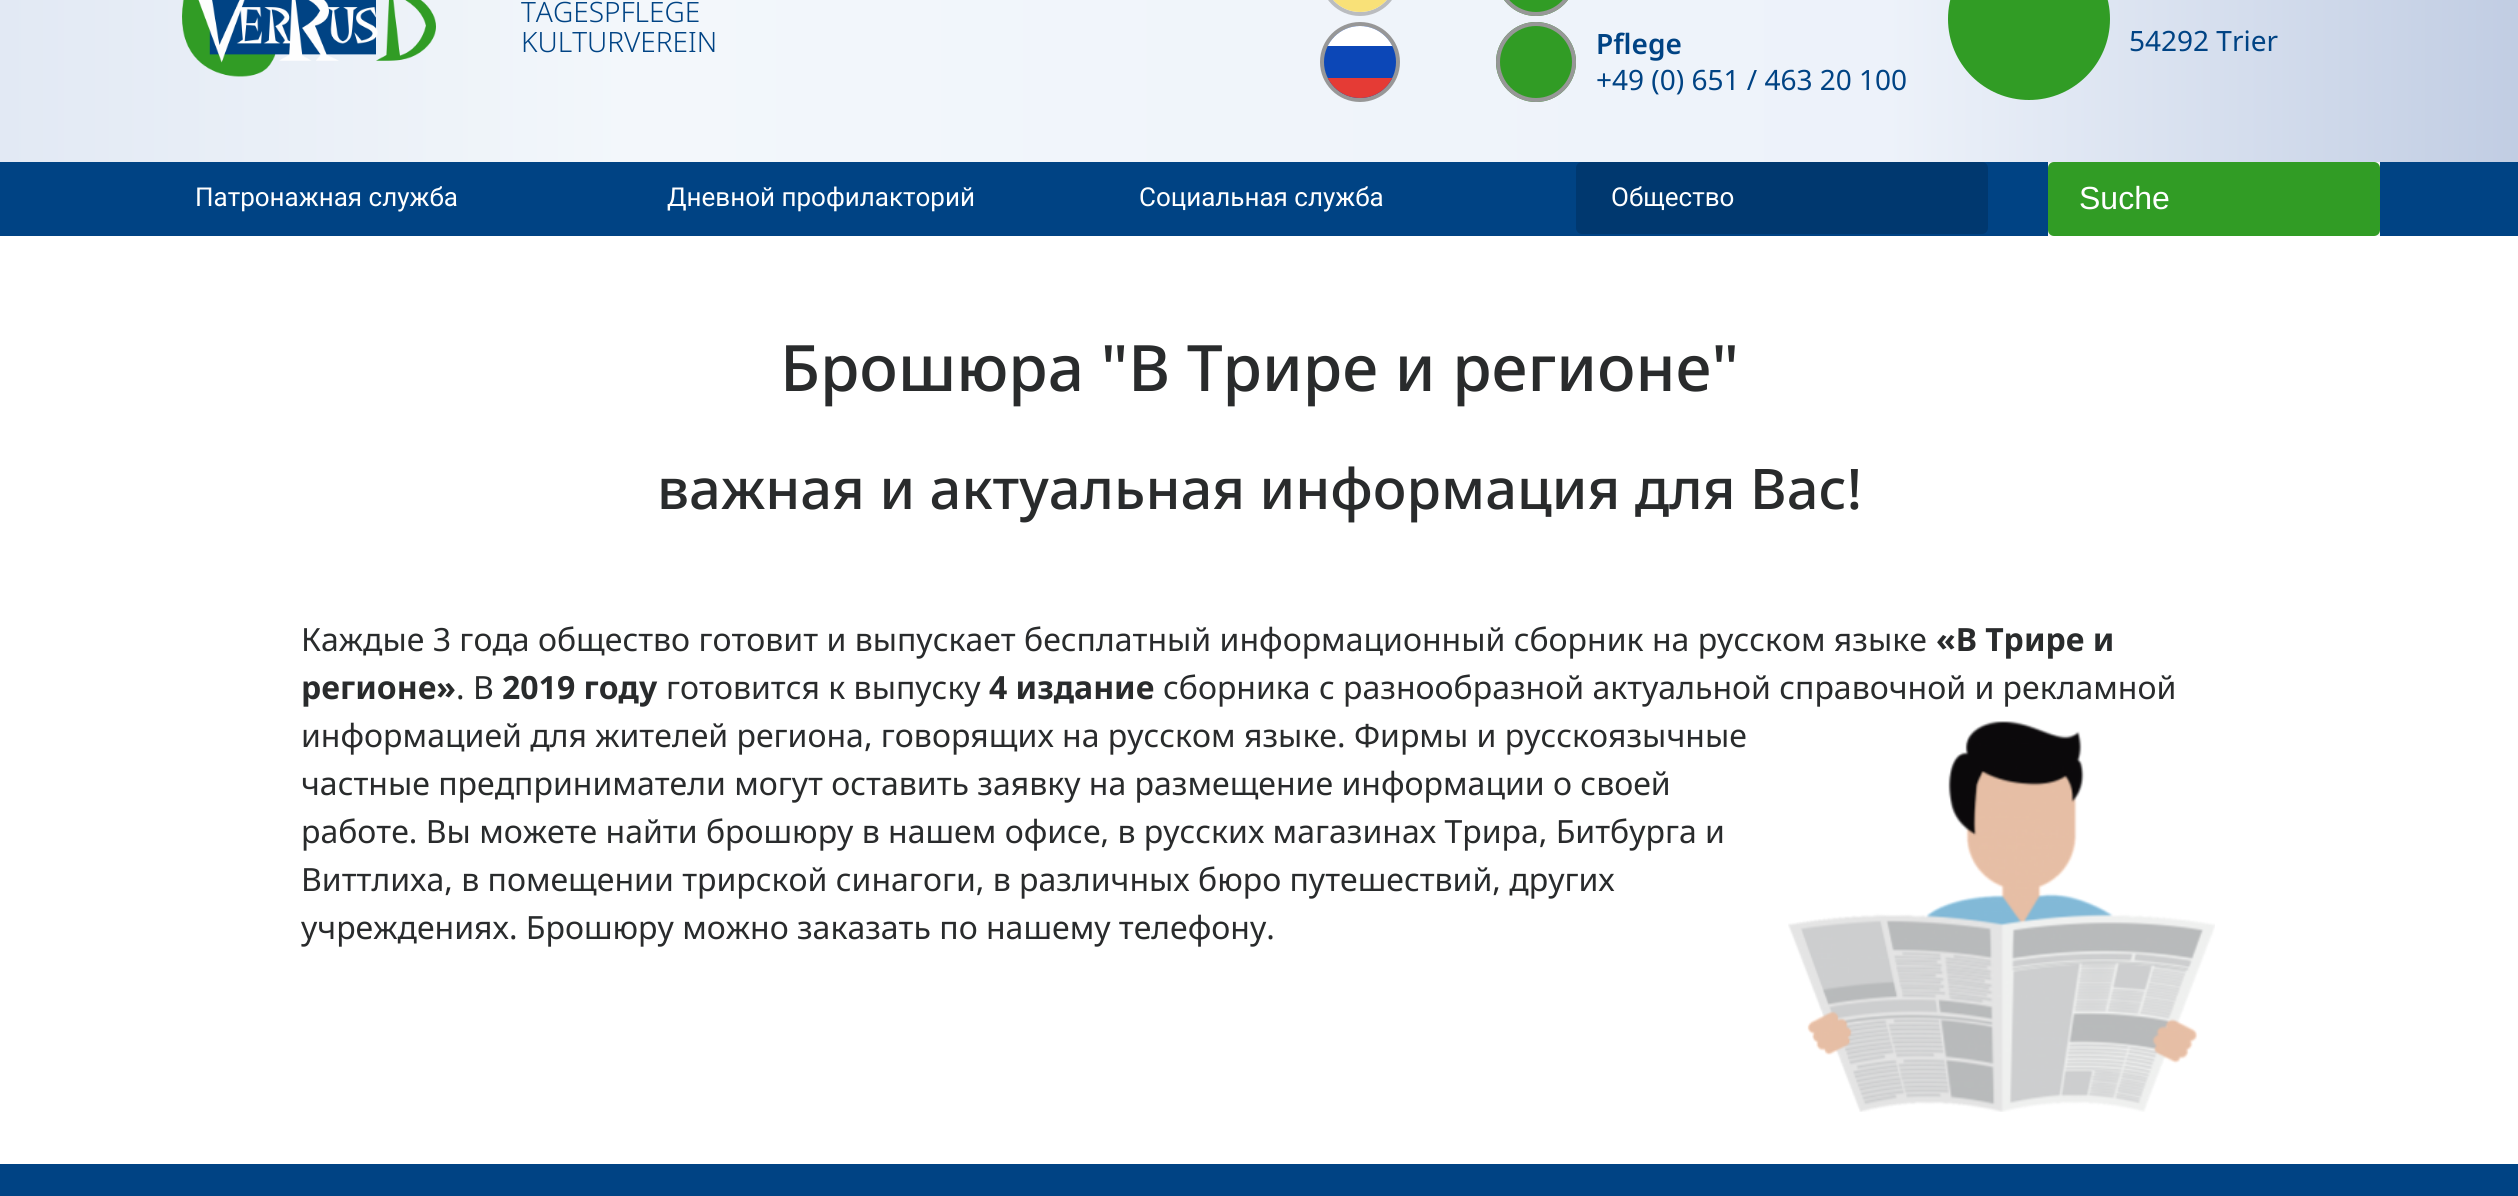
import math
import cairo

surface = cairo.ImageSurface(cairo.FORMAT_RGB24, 2518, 1196)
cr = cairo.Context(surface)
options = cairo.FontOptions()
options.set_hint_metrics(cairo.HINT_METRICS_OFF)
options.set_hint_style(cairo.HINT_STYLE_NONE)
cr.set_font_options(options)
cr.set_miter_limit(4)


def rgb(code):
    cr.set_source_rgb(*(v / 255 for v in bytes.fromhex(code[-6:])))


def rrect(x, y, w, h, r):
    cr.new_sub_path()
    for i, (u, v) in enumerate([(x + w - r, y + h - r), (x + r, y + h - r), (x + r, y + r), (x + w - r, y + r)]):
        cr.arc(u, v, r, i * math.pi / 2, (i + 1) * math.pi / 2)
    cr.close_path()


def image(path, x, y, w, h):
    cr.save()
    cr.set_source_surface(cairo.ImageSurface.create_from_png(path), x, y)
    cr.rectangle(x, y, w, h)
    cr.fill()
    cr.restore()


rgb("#ffffff")
cr.paint()
gradient = cairo.LinearGradient(0, 19, 2518, 19)
gradient.add_color_stop_rgba(0, 0.886, 0.914, 0.957, 1)
gradient.add_color_stop_rgba(0.25, 0.953, 0.969, 0.984, 1)
gradient.add_color_stop_rgba(0.75, 0.929, 0.949, 0.98, 1)
gradient.add_color_stop_rgba(1, 0.757, 0.804, 0.89, 1)
cr.set_source(gradient)
cr.rectangle(0, 0, 2518, 162)
cr.fill()
image("img/1.png", 182, 0, 254, 77)
rrect(1322, -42, 76, 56, 38)
rgb("#babcbf")
cr.set_line_width(4)
cr.stroke()
cr.save()
rrect(1324, -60, 72, 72, 36)
cr.clip()
rgb("#f9e178")
cr.rectangle(1333, 0, 54, 12)
cr.fill()
cr.restore()
rgb("#0c47b7")
cr.arc(1360, 62, 38, 0, 2 * math.pi)
cr.fill_preserve()
rgb("#979797")
cr.stroke()
cr.save()
rrect(1324, 26, 72, 72, 36)
cr.clip()
rgb("#ffffff")
cr.rectangle(1327, 26, 66, 20)
cr.fill()
rgb("#e53b35")
cr.rectangle(1327, 78, 66, 20)
cr.fill()
cr.restore()
rgb("#319c25")
cr.new_path()
cr.move_to(1496, -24)
cr.curve_to(1496, -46, 1514, -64, 1536, -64)
cr.curve_to(1558, -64, 1576, -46, 1576, -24)
cr.curve_to(1576, -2, 1558, 16, 1536, 16)
cr.curve_to(1514, 16, 1496, -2, 1496, -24)
cr.close_path()
cr.fill()
cr.new_path()
cr.move_to(1498, -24)
cr.curve_to(1498, -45, 1515, -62, 1536, -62)
cr.curve_to(1557, -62, 1574, -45, 1574, -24)
cr.curve_to(1574, -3, 1557, 14, 1536, 14)
cr.curve_to(1515, 14, 1498, -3, 1498, -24)
cr.close_path()
rgb("#979797")
cr.stroke()
rgb("#319c25")
cr.new_path()
cr.move_to(1496, 62)
cr.curve_to(1496, 40, 1514, 22, 1536, 22)
cr.curve_to(1558, 22, 1576, 40, 1576, 62)
cr.curve_to(1576, 84, 1558, 102, 1536, 102)
cr.curve_to(1514, 102, 1496, 84, 1496, 62)
cr.close_path()
cr.fill()
cr.new_path()
cr.move_to(1498, 62)
cr.curve_to(1498, 41, 1515, 24, 1536, 24)
cr.curve_to(1557, 24, 1574, 41, 1574, 62)
cr.curve_to(1574, 83, 1557, 100, 1536, 100)
cr.curve_to(1515, 100, 1498, 83, 1498, 62)
cr.close_path()
rgb("#979797")
cr.stroke()
rgb("#319c25")
cr.arc(2029, 19, 81, 0, 2 * math.pi)
cr.fill()
rgb("#004384")
cr.rectangle(0, 162, 2518, 74)
cr.fill()
rgb("#00386f")
rrect(1576, 162, 412, 72, 6)
cr.fill()
rgb("#f5f5f5")
cr.rectangle(2048, 162, 332, 74)
cr.fill()
rgb("#319c25")
rrect(2048, 162, 332, 74, 6)
cr.fill()
image("img/2.png", 1788, 721, 427, 391)
rgb("#004384")
cr.rectangle(0, 1164, 2518, 32)
cr.fill()
cr.select_font_face("Noto Sans Light")
cr.set_font_size(28)
cr.move_to(521, 22)
cr.show_text("TAGESPFLEGE")
cr.move_to(521, 52)
cr.show_text("KULTURVEREIN")
cr.select_font_face("Noto Sans SemiBold")
cr.move_to(1596, 54)
cr.show_text("Pflege")
cr.select_font_face("Noto Sans")
cr.move_to(1596, 90)
cr.show_text("+49 (0) 651 / 463 20 100")
cr.move_to(2129, 51)
cr.show_text("54292 Trier")
cr.select_font_face("Roboto")
cr.set_font_size(26)
rgb("#ffffff")
for x, y, s in [
    (195, 206, "Патронажная служба"),
    (667, 206, "Дневной профилакторий"),
    (1139, 206, "Социальная служба"),
    (1611, 206, "Общество"),
]:
    cr.move_to(x, y)
    cr.show_text(s)
cr.select_font_face("Liberation Sans")
cr.set_font_size(32)
cr.move_to(2079, 209)
cr.show_text("Suche")
cr.select_font_face("Noto Sans Medium")
cr.set_font_size(64)
rgb("#292b2c")
cr.move_to(780, 391)
cr.show_text("Брошюра \"В Трире и регионе\"")
cr.set_font_size(56)
cr.move_to(657, 509)
cr.show_text("важная и актуальная информация для Вас!")
cr.select_font_face("Noto Sans")
cr.set_font_size(32)
cr.move_to(301, 651)
cr.show_text("Каждые 3 года общество готовит и выпускает бесплатный информационный сборник на русском языке")
cr.select_font_face("Noto Sans", cairo.FONT_SLANT_NORMAL, cairo.FONT_WEIGHT_BOLD)
cr.move_to(1936, 651)
cr.show_text("«В Трире и")
cr.move_to(301, 699)
cr.show_text("регионе»")
cr.select_font_face("Noto Sans")
cr.move_to(456, 699)
cr.show_text(". В")
cr.select_font_face("Noto Sans", cairo.FONT_SLANT_NORMAL, cairo.FONT_WEIGHT_BOLD)
cr.move_to(502, 699)
cr.show_text("2019 году")
cr.select_font_face("Noto Sans")
cr.move_to(666, 699)
cr.show_text("готовится к выпуску")
cr.select_font_face("Noto Sans", cairo.FONT_SLANT_NORMAL, cairo.FONT_WEIGHT_BOLD)
cr.move_to(989, 699)
cr.show_text("4 издание")
cr.select_font_face("Noto Sans")
for x, y, s in [
    (1163, 699, "сборника с разнообразной актуальной справочной и рекламной"),
    (301, 747, "информацией для жителей региона, говорящих на русском языке. Фирмы и русскоязычные"),
    (301, 795, "частные предприниматели могут оставить заявку на размещение информации о своей"),
    (301, 843, "работе. Вы можете найти брошюру в нашем офисе, в русских магазинах Трира, Битбурга и"),
    (301, 891, "Виттлиха, в помещении трирской синагоги, в различных бюро путешествий, других"),
    (301, 939, "учреждениях. Брошюру можно заказать по нашему телефону."),
]:
    cr.move_to(x, y)
    cr.show_text(s)
surface.write_to_png("page.png")
